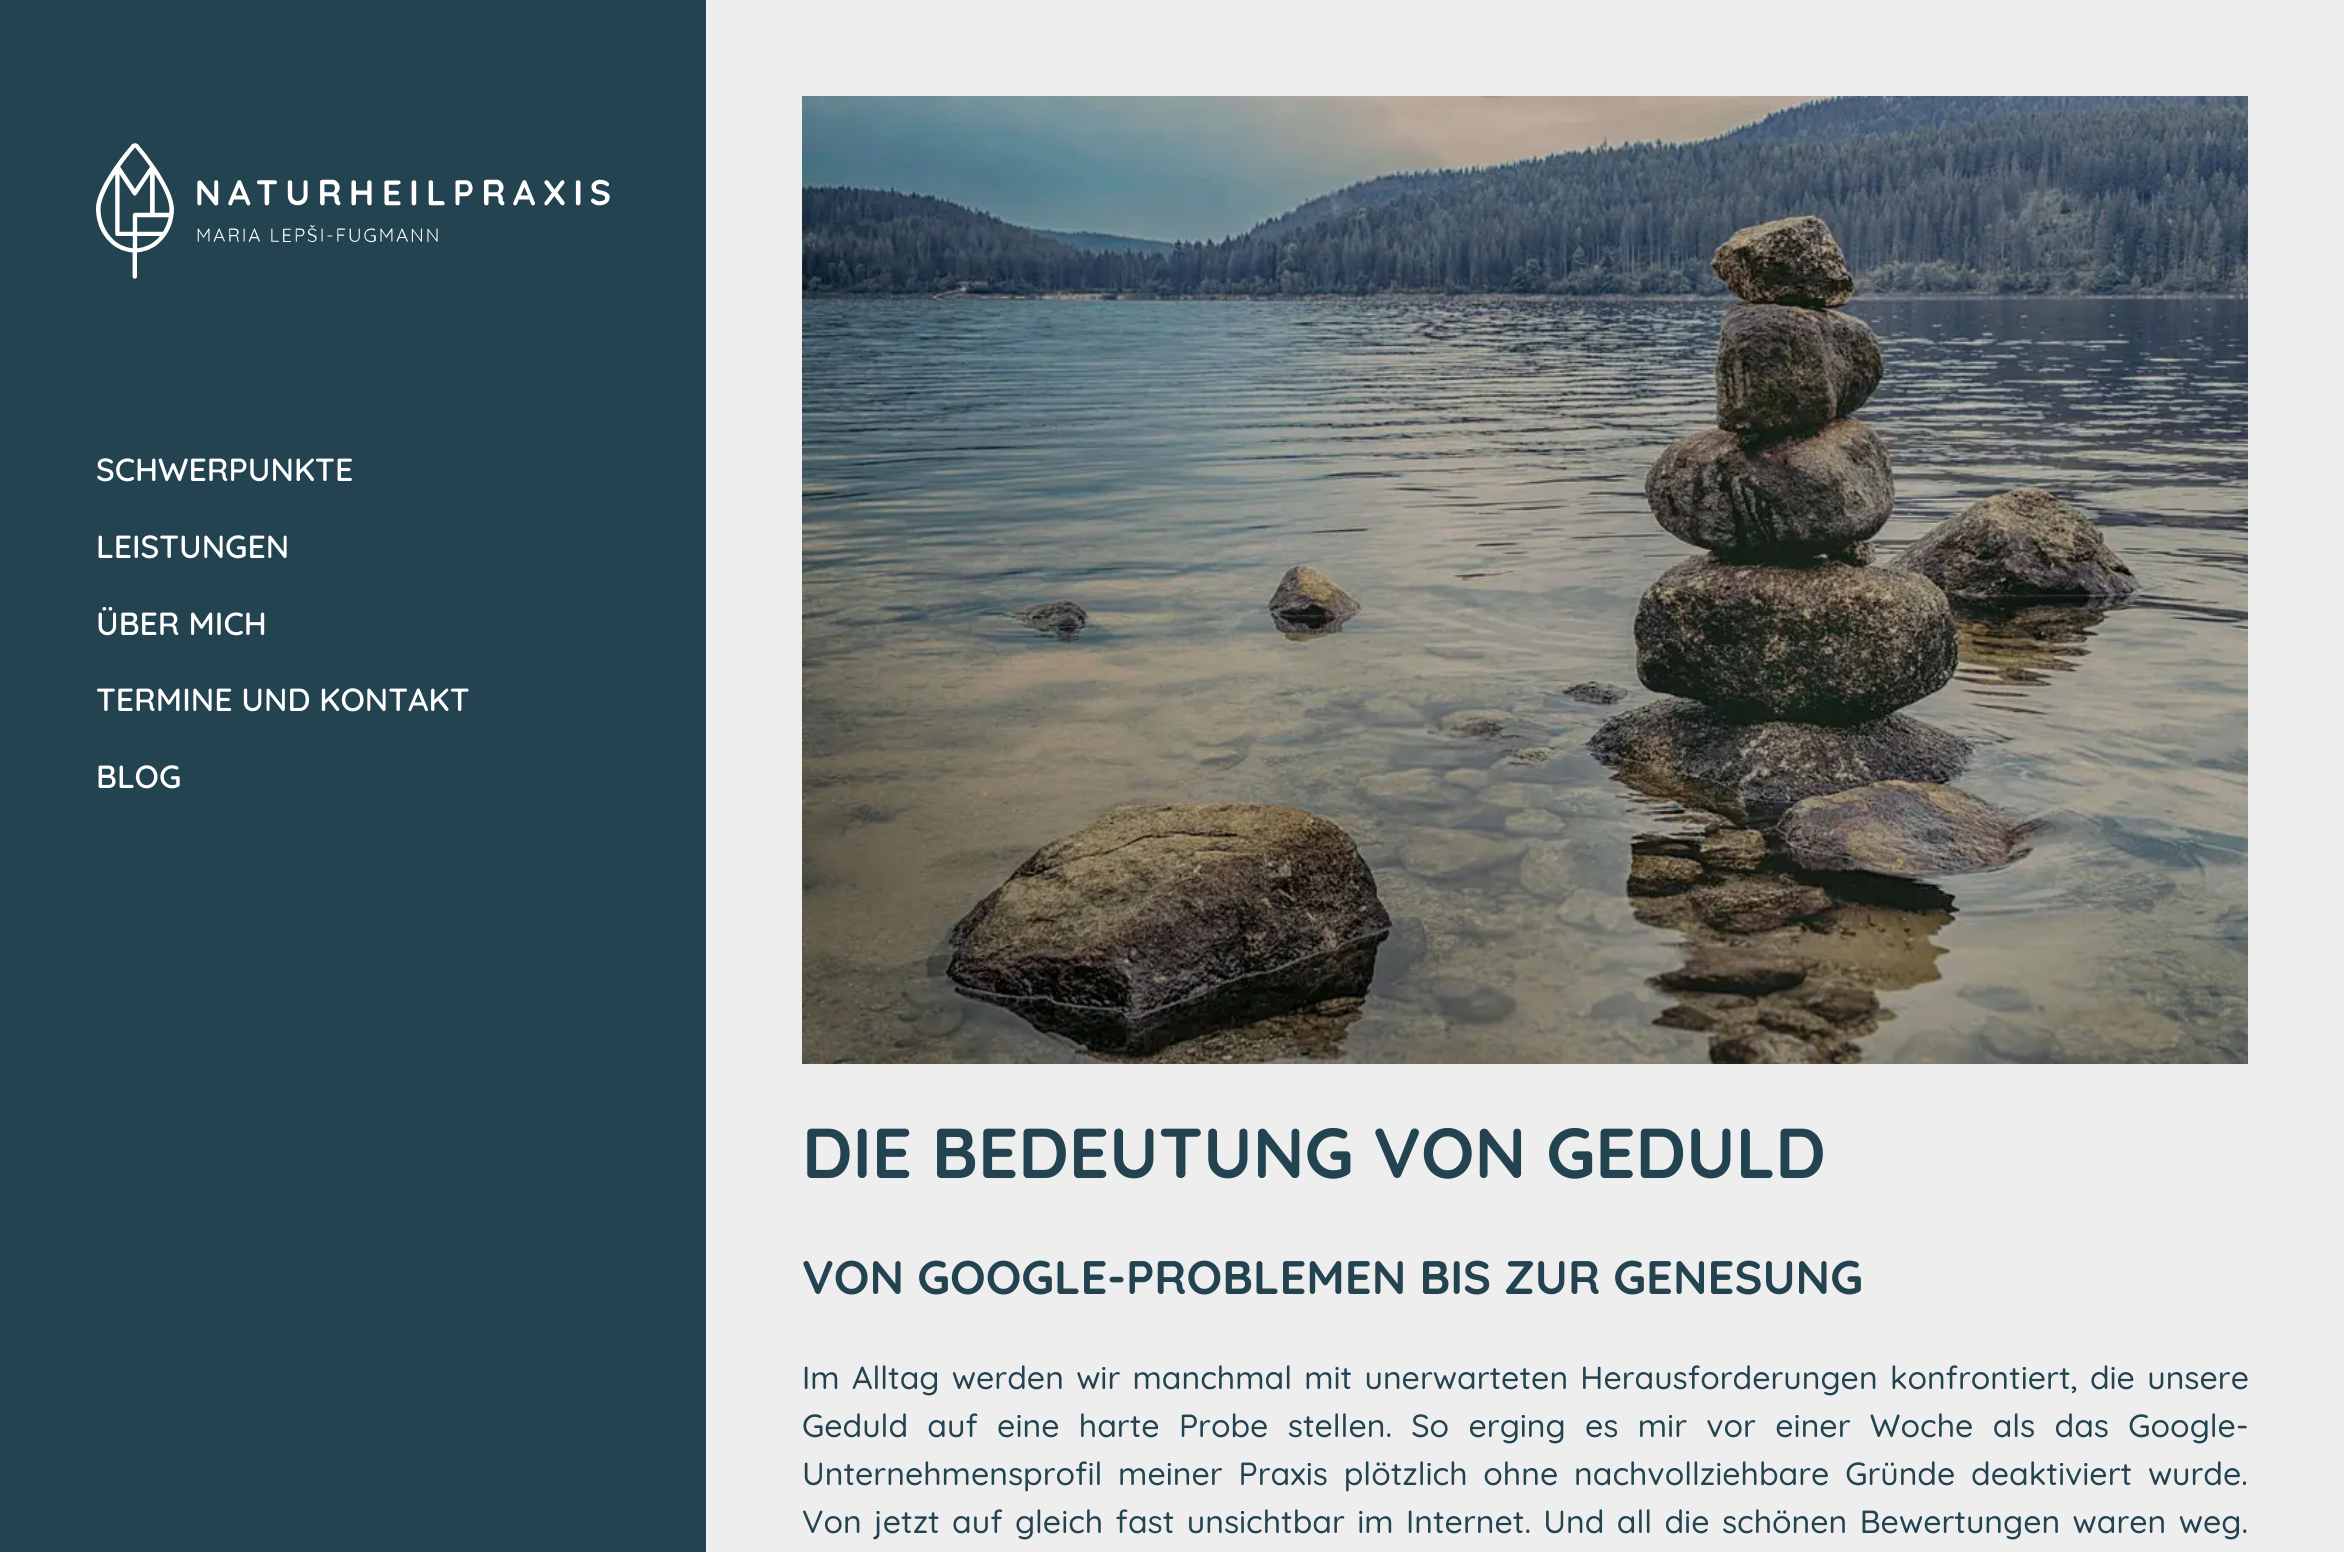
import math
import cairo

surface = cairo.ImageSurface(cairo.FORMAT_RGB24, 2352, 1552)
cr = cairo.Context(surface)
options = cairo.FontOptions()
options.set_hint_metrics(cairo.HINT_METRICS_OFF)
options.set_hint_style(cairo.HINT_STYLE_NONE)
cr.set_font_options(options)
cr.set_miter_limit(4)


def rgb(code):
    cr.set_source_rgb(*(v / 255 for v in bytes.fromhex(code[-6:])))


def tracked(x, y, s, letter, word):
    cr.move_to(x, y)
    for ch in s:
        cr.show_text(ch)
        cr.rel_move_to(letter + word * (ch == ' '), 0)


def image(path, x, y, w, h):
    cr.save()
    cr.set_source_surface(cairo.ImageSurface.create_from_png(path), x, y)
    cr.rectangle(x, y, w, h)
    cr.fill()
    cr.restore()


rgb("#ffffff")
cr.paint()
rgb("#234350")
cr.rectangle(0, 0, 706, 1552)
cr.fill()
image("img/1.png", 96, 143, 514, 136)
rgb("#eeeeee")
cr.rectangle(706, 0, 1638, 1552)
cr.fill()
image("img/2.png", 802, 96, 1446, 968)
cr.select_font_face("Quicksand SemiBold")
cr.set_font_size(32)
rgb("#ffffff")
for x, y, s in [
    (96, 481, "SCHWERPUNKTE"),
    (96, 558, "LEISTUNGEN"),
    (96, 635, "ÜBER MICH"),
    (96, 711, "TERMINE UND KONTAKT"),
    (96, 788, "BLOG"),
]:
    cr.move_to(x, y)
    cr.show_text(s)
cr.select_font_face("Quicksand", cairo.FONT_SLANT_NORMAL, cairo.FONT_WEIGHT_BOLD)
cr.set_font_size(70.5)
rgb("#234350")
cr.move_to(802, 1178)
cr.show_text("DIE BEDEUTUNG VON GEDULD")
cr.set_font_size(47)
cr.move_to(802, 1294)
cr.show_text("VON GOOGLE-PROBLEMEN BIS ZUR GENESUNG")
cr.select_font_face("Quicksand Medium")
cr.set_font_size(32)
tracked(802, 1389, "Im Alltag werden wir manchmal mit unerwarteten Herausforderungen konfrontiert, die unsere", 0, 3.5)
tracked(802, 1437, "Geduld auf eine harte Probe stellen. So erging es mir vor einer Woche als das Google-", 0, 10.5)
tracked(802, 1485, "Unternehmensprofil meiner Praxis plötzlich ohne nachvollziehbare Gründe deaktiviert wurde.", 0, 7)
tracked(802, 1533, "Von jetzt auf gleich fast unsichtbar im Internet. Und all die schönen Bewertungen waren weg.", 0, 3.6)
surface.write_to_png("page.png")
